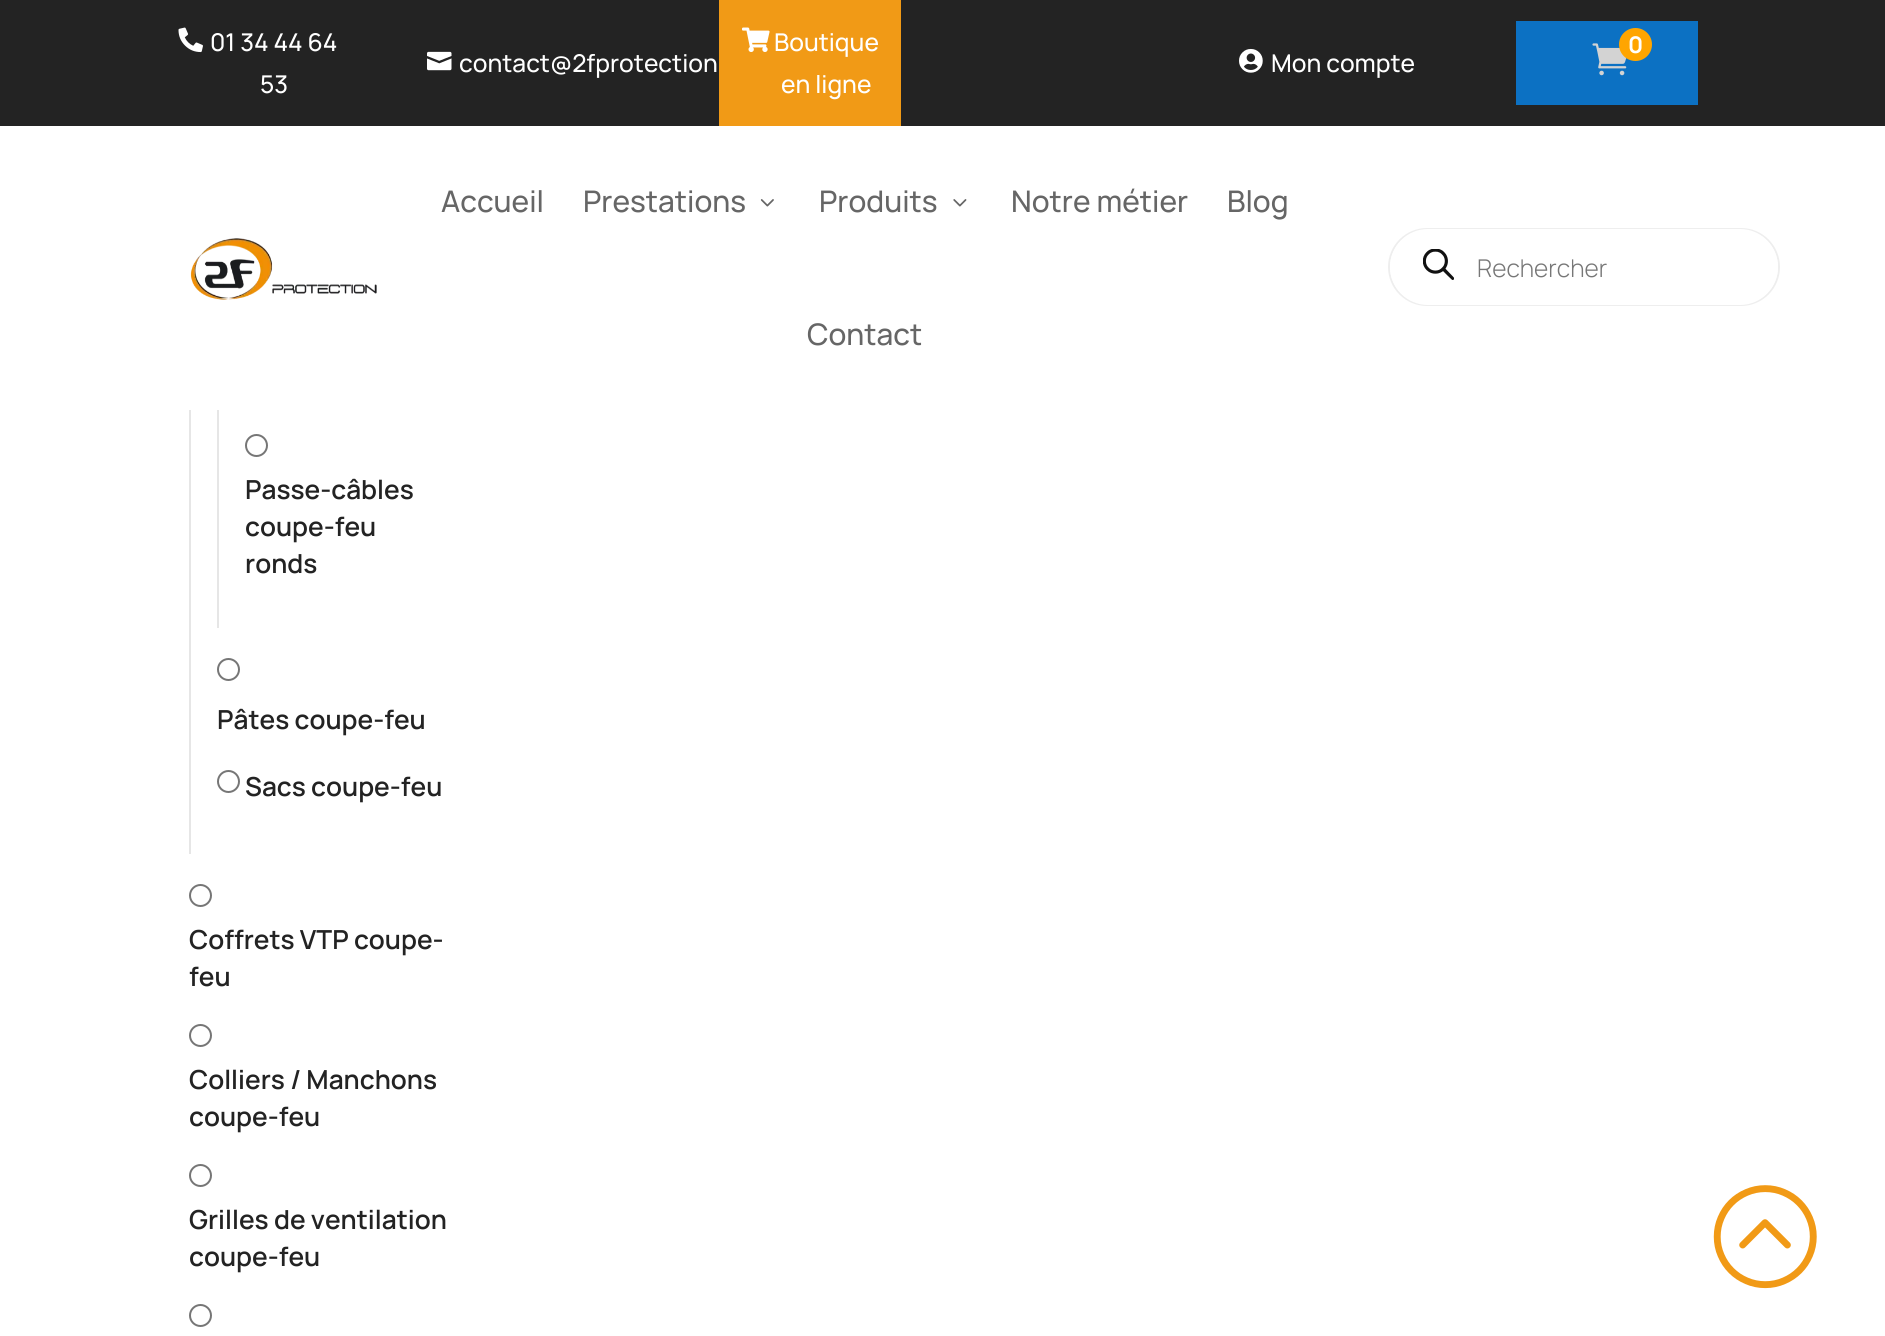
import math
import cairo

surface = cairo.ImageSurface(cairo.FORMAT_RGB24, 1885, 1336)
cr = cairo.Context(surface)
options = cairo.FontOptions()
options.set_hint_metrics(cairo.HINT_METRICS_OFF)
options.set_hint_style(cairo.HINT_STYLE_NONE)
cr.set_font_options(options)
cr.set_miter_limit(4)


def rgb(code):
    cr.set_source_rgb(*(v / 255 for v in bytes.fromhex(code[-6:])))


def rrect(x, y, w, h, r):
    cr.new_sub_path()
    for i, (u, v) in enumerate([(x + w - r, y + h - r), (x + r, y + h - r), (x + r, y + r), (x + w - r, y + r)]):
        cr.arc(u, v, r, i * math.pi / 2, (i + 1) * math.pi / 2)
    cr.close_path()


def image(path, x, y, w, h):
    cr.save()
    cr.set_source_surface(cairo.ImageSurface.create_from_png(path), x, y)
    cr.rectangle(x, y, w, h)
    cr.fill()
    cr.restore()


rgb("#ffffff")
cr.paint()
rgb("#232323")
cr.rectangle(0, 0, 1885, 126)
cr.fill()
image("img/1.png", 178, 27, 25, 26)
rgb("#f19a16")
cr.rectangle(719, 0, 182, 126)
cr.fill()
image("img/2.png", 742, 27, 28, 25)
rgb("#0c71c3")
cr.rectangle(1516, 21, 182, 84)
cr.fill()
image("img/3.png", 1592, 43, 35, 33)
rgb("#ffa500")
cr.arc(1635.5, 44.5, 16.5, 0, 2 * math.pi)
cr.fill()
image("img/4.png", 427, 51, 25, 20)
image("img/5.png", 1239, 48, 24, 25)
image("img/6.png", 190, 238, 187, 62)
image("img/7.png", 760, 199, 14, 8)
image("img/8.png", 953, 199, 14, 8)
rrect(1389, 229, 390, 76, 38)
rgb("#eeeeee")
cr.stroke()
rgb("#ffffff")
rrect(1390, 229, 388, 76, 38)
cr.fill()
image("img/9.png", 1423, 249, 31, 31)
rgb("#e6e6e6")
cr.rectangle(189, 410, 2, 444)
cr.fill()
cr.rectangle(217, 410, 2, 218)
cr.fill()
cr.arc(256.5, 445.5, 10.5, 0, 2 * math.pi)
rgb("#767676")
cr.stroke()
cr.arc(228.5, 669.5, 10.5, 0, 2 * math.pi)
cr.stroke()
cr.arc(228.5, 781.5, 10.5, 0, 2 * math.pi)
cr.stroke()
cr.arc(200.5, 895.5, 10.5, 0, 2 * math.pi)
cr.stroke()
cr.arc(200.5, 1035.5, 10.5, 0, 2 * math.pi)
cr.stroke()
cr.arc(200.5, 1175.5, 10.5, 0, 2 * math.pi)
cr.stroke()
cr.arc(200.5, 1315.5, 10.5, 0, 2 * math.pi)
cr.stroke()
image("img/10.png", 1713, 1185, 104, 104)
cr.select_font_face("Manrope Medium")
cr.set_font_size(24.5)
rgb("#ffffff")
for x, y, s in [
    (210, 51, "01 34 44 64"),
    (260, 93, "53"),
    (774, 51, "Boutique"),
    (781, 93, "en ligne"),
]:
    cr.move_to(x, y)
    cr.show_text(s)
cr.select_font_face("Manrope", cairo.FONT_SLANT_NORMAL, cairo.FONT_WEIGHT_BOLD)
cr.set_font_size(23)
cr.move_to(1628, 53)
cr.show_text("0")
cr.select_font_face("Manrope Medium")
cr.set_font_size(24.5)
cr.move_to(459, 72)
cr.show_text("contact@2fprotection")
cr.move_to(1271, 72)
cr.show_text("Mon compte")
cr.set_font_size(29.75)
rgb("#666666")
for x, y, s in [
    (441, 212, "Accueil"),
    (583, 212, "Prestations"),
    (819, 212, "Produits"),
    (1011, 212, "Notre métier"),
    (1227, 212, "Blog"),
    (807, 345, "Contact"),
]:
    cr.move_to(x, y)
    cr.show_text(s)
cr.select_font_face("Manrope Light")
cr.set_font_size(24.5)
rgb("#777777")
cr.move_to(1477, 277)
cr.show_text("Rechercher")
cr.select_font_face("Manrope SemiBold")
cr.set_font_size(26.25)
rgb("#232323")
for x, y, s in [
    (245, 499, "Passe-câbles"),
    (245, 536, "coupe-feu"),
    (245, 573, "ronds"),
    (217, 729, "Pâtes coupe-feu"),
    (245, 796, "Sacs coupe-feu"),
    (189, 949, "Coffrets VTP coupe-"),
    (189, 986, "feu"),
    (189, 1089, "Colliers / Manchons"),
    (189, 1126, "coupe-feu"),
    (189, 1229, "Grilles de ventilation"),
    (189, 1266, "coupe-feu"),
]:
    cr.move_to(x, y)
    cr.show_text(s)
surface.write_to_png("page.png")
